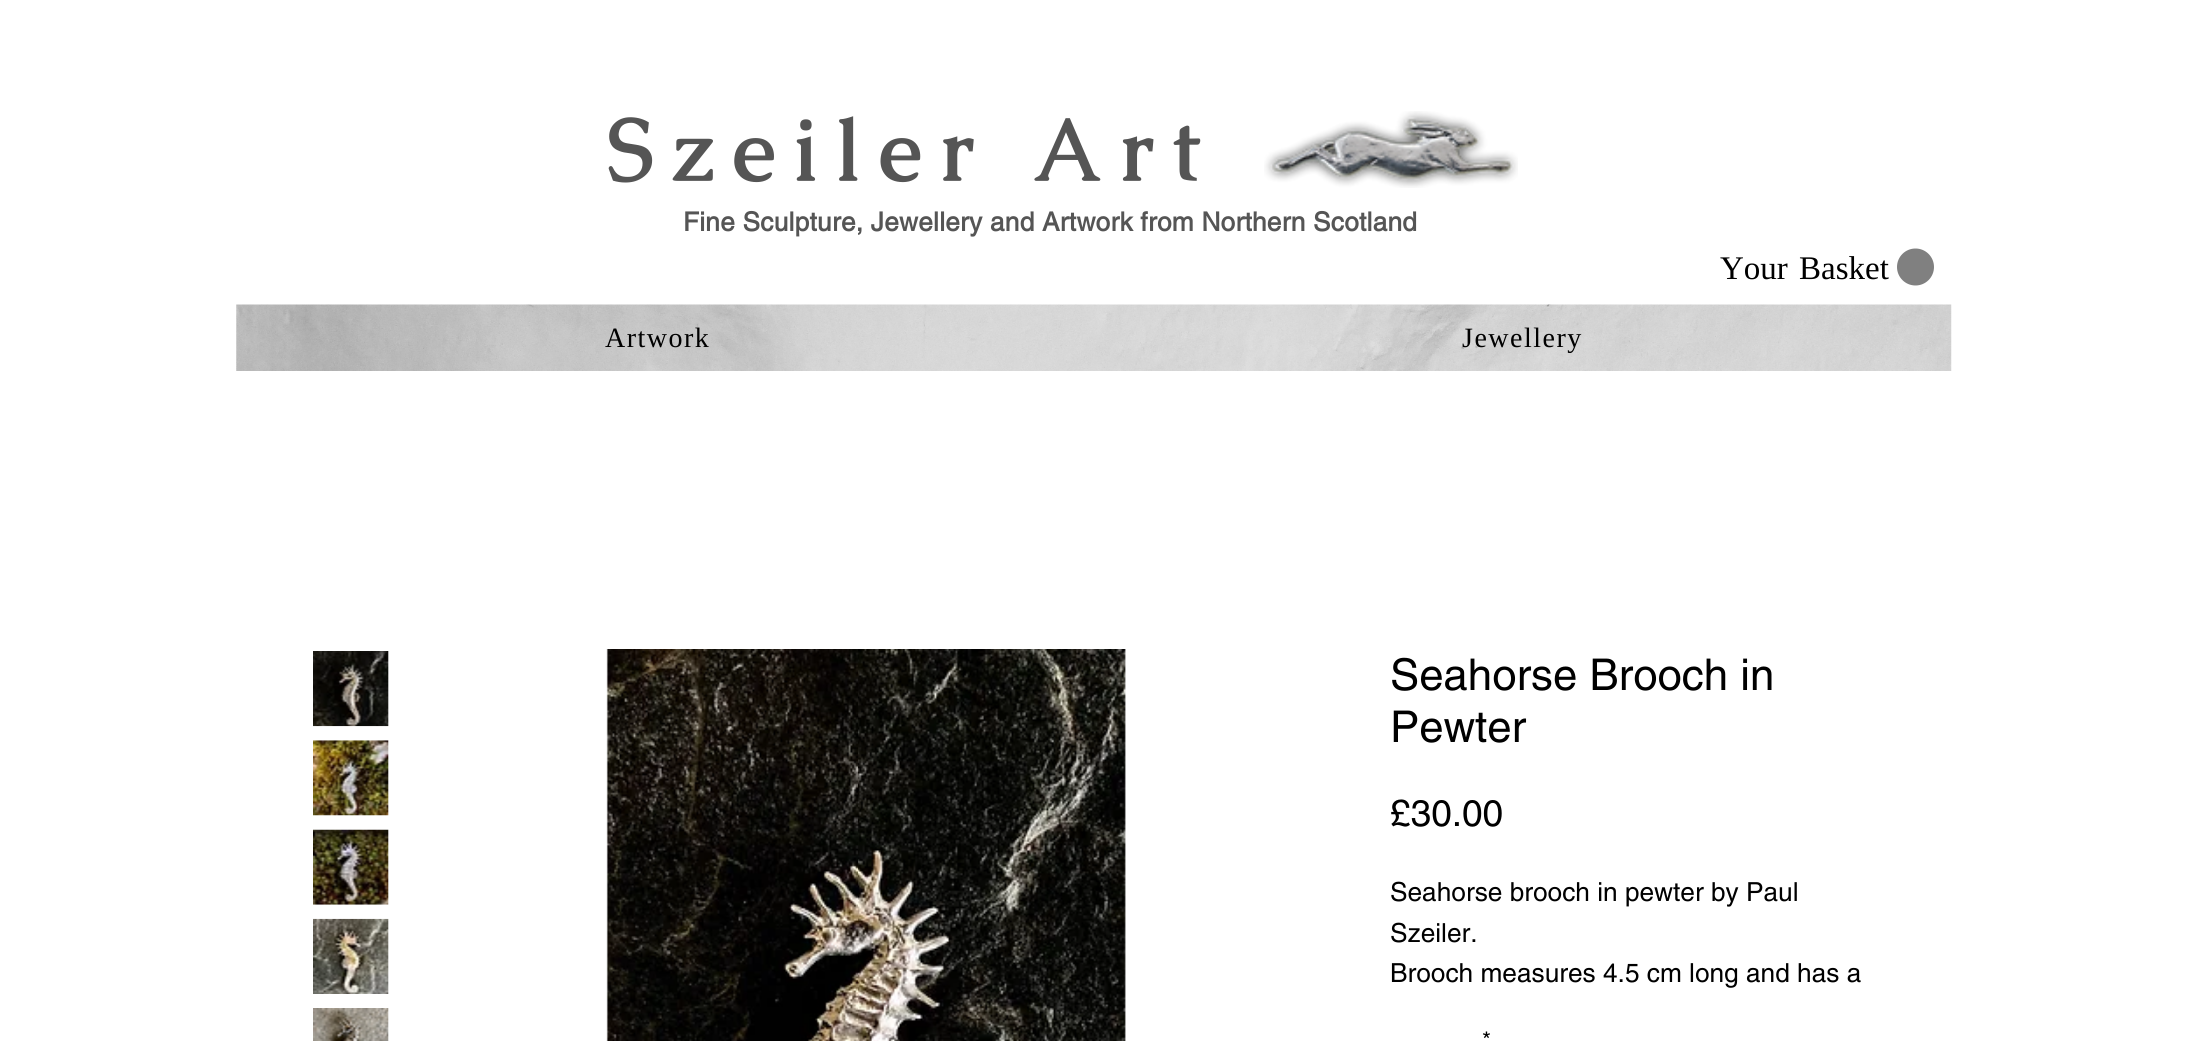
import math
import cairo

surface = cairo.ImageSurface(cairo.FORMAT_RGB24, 2187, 1041)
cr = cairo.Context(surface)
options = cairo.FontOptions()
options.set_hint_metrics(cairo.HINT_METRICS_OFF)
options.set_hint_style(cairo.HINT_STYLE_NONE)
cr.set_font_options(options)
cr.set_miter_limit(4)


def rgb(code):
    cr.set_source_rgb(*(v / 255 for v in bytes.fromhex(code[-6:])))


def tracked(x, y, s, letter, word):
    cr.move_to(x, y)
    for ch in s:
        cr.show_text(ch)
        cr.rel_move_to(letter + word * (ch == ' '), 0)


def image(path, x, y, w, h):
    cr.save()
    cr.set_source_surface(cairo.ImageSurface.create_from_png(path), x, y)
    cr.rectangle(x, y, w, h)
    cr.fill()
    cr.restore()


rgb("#ffffff")
cr.paint()
image("img/1.png", 1264, 111, 254, 77)
rgb("#808080")
cr.arc(1915.5, 267, 18.5, 0, 2 * math.pi)
cr.fill()
image("img/2.png", 236, 304, 1716, 67)
image("img/3.png", 313, 651, 76, 76)
image("img/4.png", 313, 740, 76, 76)
image("img/5.png", 313, 829, 76, 76)
image("img/6.png", 313, 918, 76, 76)
image("img/7.png", 313, 1008, 76, 33)
image("img/8.png", 606, 649, 520, 392)
cr.select_font_face("Caudex", cairo.FONT_SLANT_NORMAL, cairo.FONT_WEIGHT_BOLD)
cr.set_font_size(87.5)
rgb("#555555")
tracked(607, 180, "Szeiler Art", 17.5, 0)
cr.select_font_face("helvetica", cairo.FONT_SLANT_NORMAL, cairo.FONT_WEIGHT_BOLD)
cr.set_font_size(26.25)
tracked(683, 231, "Fine Sculpture, Jewellery and Artwork from Northern Scotland", 0.25, 0)
cr.select_font_face("Liberation Serif")
cr.set_font_size(33)
rgb("#000000")
tracked(1720, 279, "Your Basket", 0, 3)
cr.set_font_size(28)
tracked(605, 347, "Artwork", 1.5, 0)
tracked(1462, 347, "Jewellery", 1.5, 0)
cr.select_font_face("helvetica")
cr.set_font_size(43.75)
cr.move_to(1390, 690)
cr.show_text("Seahorse Brooch in")
cr.move_to(1390, 742)
cr.show_text("Pewter")
cr.set_font_size(37)
cr.move_to(1390, 826)
cr.show_text("£30.00")
cr.set_font_size(26.25)
for x, y, s in [
    (1390, 901, "Seahorse brooch in pewter by Paul"),
    (1390, 942, "Szeiler."),
    (1390, 982, "Brooch measures 4.5 cm long and has a"),
]:
    cr.move_to(x, y)
    cr.show_text(s)
cr.set_font_size(23)
cr.move_to(1482, 1048)
cr.show_text("*")
surface.write_to_png("page.png")
